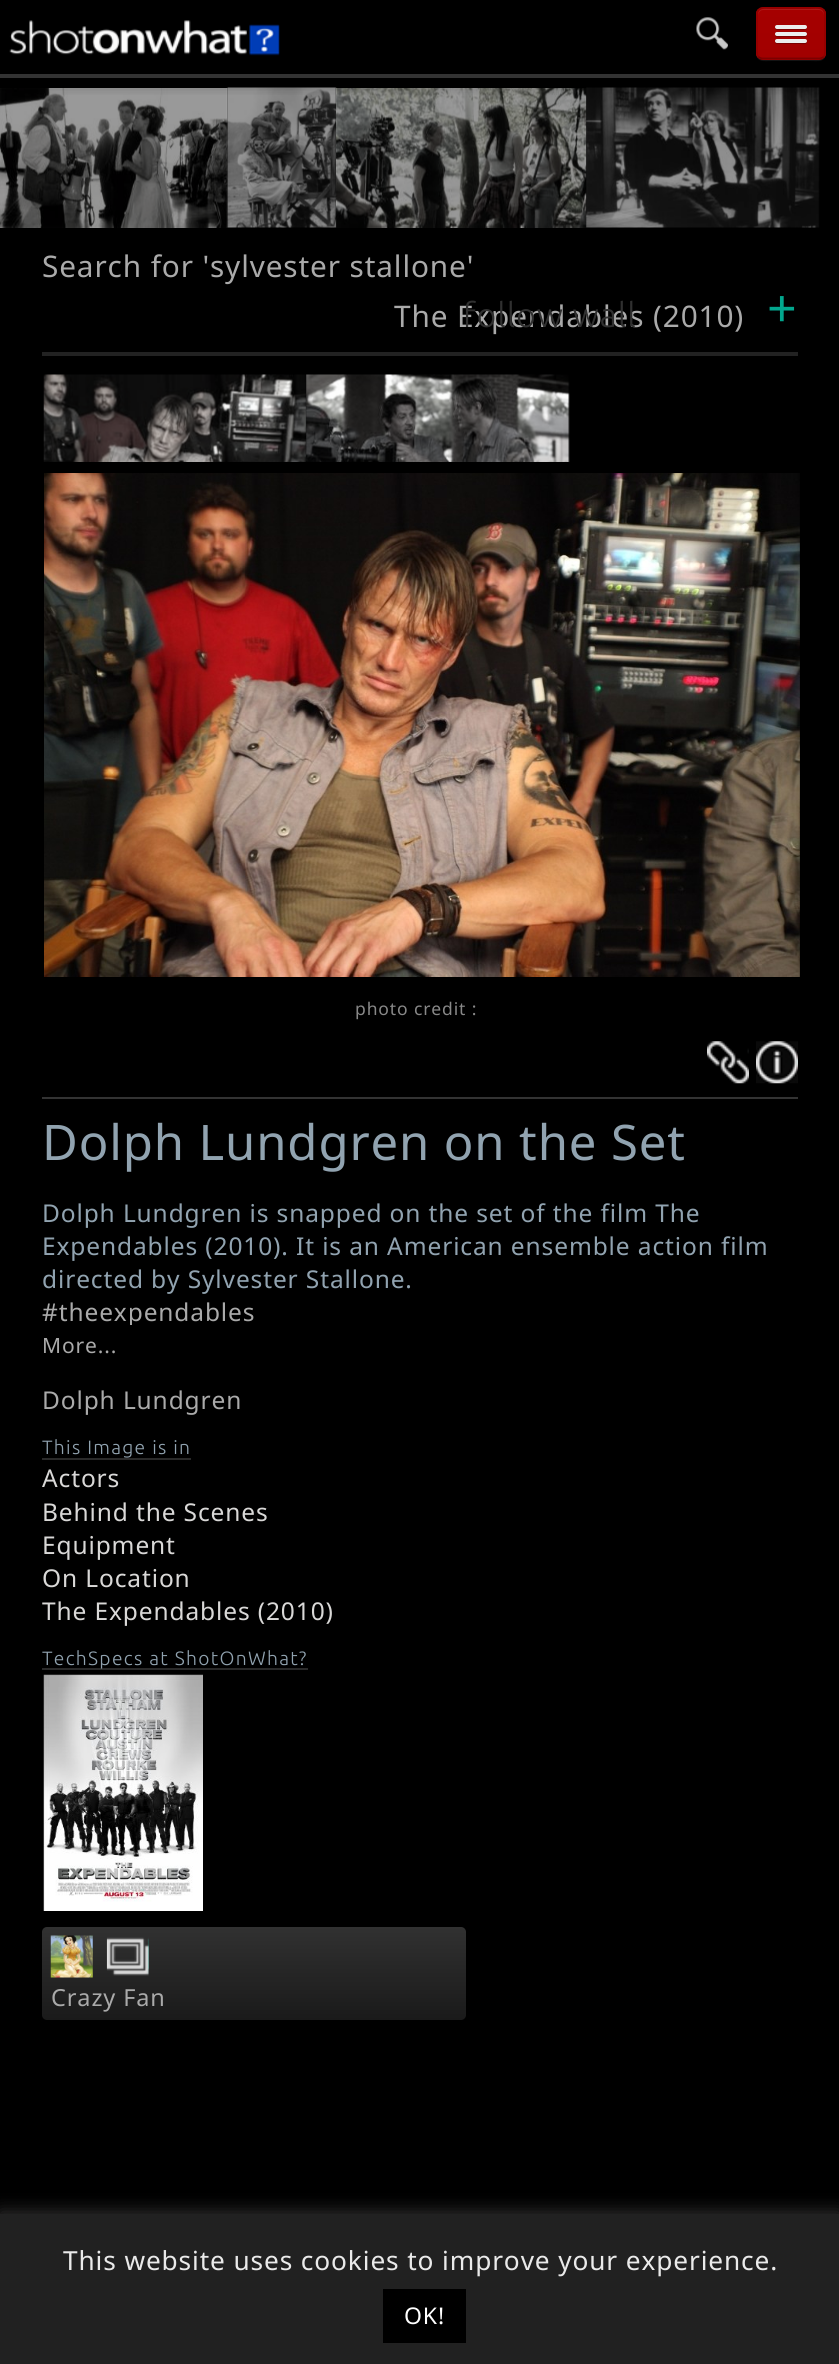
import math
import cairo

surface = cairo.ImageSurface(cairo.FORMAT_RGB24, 839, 2364)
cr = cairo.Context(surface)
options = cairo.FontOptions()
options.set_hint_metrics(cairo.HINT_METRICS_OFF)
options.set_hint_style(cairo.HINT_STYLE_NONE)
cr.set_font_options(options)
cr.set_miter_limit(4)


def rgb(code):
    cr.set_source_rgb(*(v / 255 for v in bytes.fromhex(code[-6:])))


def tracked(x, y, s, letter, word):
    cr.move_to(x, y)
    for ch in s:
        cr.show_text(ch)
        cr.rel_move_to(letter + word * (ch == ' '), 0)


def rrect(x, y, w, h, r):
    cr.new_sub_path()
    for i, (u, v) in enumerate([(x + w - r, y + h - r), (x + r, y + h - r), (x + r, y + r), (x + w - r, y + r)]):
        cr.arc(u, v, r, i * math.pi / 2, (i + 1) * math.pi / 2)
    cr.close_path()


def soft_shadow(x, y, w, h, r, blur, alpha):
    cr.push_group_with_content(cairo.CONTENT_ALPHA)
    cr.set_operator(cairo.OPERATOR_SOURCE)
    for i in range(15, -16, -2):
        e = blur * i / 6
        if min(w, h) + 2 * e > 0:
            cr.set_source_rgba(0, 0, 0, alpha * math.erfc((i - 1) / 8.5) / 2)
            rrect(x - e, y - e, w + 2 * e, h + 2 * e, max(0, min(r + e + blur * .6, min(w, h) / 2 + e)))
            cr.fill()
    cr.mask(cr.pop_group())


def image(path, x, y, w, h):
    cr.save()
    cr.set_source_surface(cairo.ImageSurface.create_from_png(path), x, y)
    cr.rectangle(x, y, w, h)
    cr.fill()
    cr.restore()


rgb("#000000")
cr.paint()
image("img/3.png", 0, 88, 228, 140)
image("img/4.png", 226, 87, 111, 141)
image("img/5.png", 336, 88, 251, 140)
image("img/6.png", 586, 87, 234, 141)
cr.save()
cr.rectangle(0, 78, 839, 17)
cr.clip()
soft_shadow(7, 0, 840, 77, 0, 9, 0.9)
cr.restore()
rgb("#333333")
cr.rectangle(0, 74, 839, 4)
cr.fill()
image("img/1.png", 9, 20, 271, 36)
image("img/2.png", 696, 17, 32, 33)
rgb("#131313")
cr.new_path()
cr.move_to(756, 52)
cr.curve_to(756, 63, 764, 61, 772, 61)
cr.line_to(810, 61)
cr.curve_to(818, 61, 826, 63, 826, 52)
cr.curve_to(826, 56, 823, 60, 819, 60)
cr.line_to(763, 60)
cr.curve_to(759, 60, 756, 56, 756, 52)
cr.close_path()
cr.fill()
rgb("#a50000")
rrect(756, 7, 70, 53, 7)
cr.fill()
cr.save()
rrect(756, 7, 70, 53, 7)
cr.clip()
gradient = cairo.LinearGradient(791, 9, 791, 58)
gradient.add_color_stop_rgba(0, 0.647, 0, 0, 1)
gradient.add_color_stop_rgba(1, 0.635, 0, 0, 1)
cr.set_source(gradient)
cr.rectangle(756, 9, 70, 49)
cr.fill()
cr.restore()
rgb("#ae1919")
cr.new_path()
cr.move_to(763, 10)
cr.line_to(819, 10)
cr.curve_to(822, 10, 824, 13, 824, 16)
cr.curve_to(824, 7, 817, 9, 810, 9)
cr.line_to(772, 9)
cr.curve_to(765, 9, 758, 7, 758, 16)
cr.curve_to(758, 13, 760, 10, 763, 10)
cr.close_path()
cr.fill()
cr.new_path()
cr.move_to(823.5, 57)
cr.curve_to(822, 58, 820.5, 58.5, 819, 58.5)
cr.line_to(763, 58.5)
cr.curve_to(761.5, 58.5, 760, 58, 758.5, 57)
cr.set_source_rgba(0, 0, 0, 0.25)
cr.set_line_width(1.8)
cr.stroke()
cr.new_path()
cr.move_to(758.5, 57)
cr.curve_to(757.5, 55.5, 757, 54, 757, 52.5)
cr.line_to(757, 14)
cr.curve_to(757, 12.5, 757.5, 11, 758.5, 9.5)
cr.curve_to(760, 8.5, 761.5, 8, 763, 8)
cr.line_to(819, 8)
cr.curve_to(820.5, 8, 822, 8.5, 823.5, 9.5)
cr.curve_to(824.5, 11, 825, 12.5, 825, 14)
cr.line_to(825, 52.5)
cr.curve_to(825, 54, 824.5, 55.5, 823.5, 57)
cr.set_source_rgba(0, 0, 0, 0.1)
cr.stroke()
rgb("#7b0000")
cr.new_path()
cr.move_to(775.5, 27)
cr.line_to(775, 28.5)
cr.curve_to(775.5, 31, 780.5, 30, 781.5, 30)
cr.line_to(800.5, 30)
cr.curve_to(801.5, 30, 806.5, 31, 807, 28.5)
cr.line_to(806.5, 27)
cr.curve_to(806.5, 27.5, 806, 28, 805, 28)
cr.line_to(777, 28)
cr.curve_to(776, 28, 775.5, 27.5, 775.5, 27)
cr.close_path()
cr.fill()
rgb("#ececec")
rrect(775, 25, 32, 4, 2)
cr.fill()
rgb("#7a0000")
cr.new_path()
cr.move_to(775.5, 34)
cr.line_to(775, 35.5)
cr.curve_to(775.5, 38, 780.5, 37, 781.5, 37)
cr.line_to(800.5, 37)
cr.curve_to(801.5, 37, 806.5, 38, 807, 35.5)
cr.line_to(806.5, 34)
cr.curve_to(806.5, 34.5, 806, 35, 805, 35)
cr.line_to(777, 35)
cr.curve_to(776, 35, 775.5, 34.5, 775.5, 34)
cr.close_path()
cr.fill()
rgb("#ececec")
rrect(775, 32, 32, 4, 2)
cr.fill()
rgb("#7a0000")
cr.new_path()
cr.move_to(775.5, 41)
cr.line_to(775, 42.5)
cr.curve_to(775.5, 45, 780.5, 44, 781.5, 44)
cr.line_to(800.5, 44)
cr.curve_to(801.5, 44, 806.5, 45, 807, 42.5)
cr.line_to(806.5, 41)
cr.curve_to(806.5, 41.5, 806, 42, 805, 42)
cr.line_to(777, 42)
cr.curve_to(776, 42, 775.5, 41.5, 775.5, 41)
cr.close_path()
cr.fill()
rgb("#ececec")
rrect(775, 39, 32, 4, 2)
cr.fill()
rgb("#222222")
cr.rectangle(42, 352, 756, 4)
cr.fill()
image("img/7.png", 43, 374, 264, 88)
image("img/8.png", 306, 374, 264, 88)
image("img/9.png", 44, 473, 756, 504)
rgb("#333333")
cr.rectangle(42, 1097, 756, 2)
cr.fill()
image("img/10.png", 707, 1041, 42, 43)
image("img/11.png", 756, 1041, 42, 43)
rgb("#2a2a2a")
cr.rectangle(42, 1458, 149, 2)
cr.fill()
cr.rectangle(42, 1668, 266, 2)
cr.fill()
image("img/12.png", 43, 1674, 160, 237)
gradient = cairo.LinearGradient(254, 1927, 254, 2020)
gradient.add_color_stop_rgba(0, 0.192, 0.192, 0.192, 1)
gradient.add_color_stop_rgba(1, 0.102, 0.102, 0.102, 1)
cr.set_source(gradient)
rrect(42, 1927, 424, 93, 5)
cr.fill()
image("img/13.png", 50, 1935, 43, 43)
image("img/14.png", 106, 1937, 43, 39)
rgb("#acabab")
soft_shadow(0, 2212, 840, 151, 0, 9, 0.3)
rgb("#212121")
cr.rectangle(0, 2214, 839, 150)
cr.fill()
rgb("#000000")
cr.rectangle(383, 2289, 83, 54)
cr.fill()
cr.select_font_face("Noto Sans")
cr.set_font_size(29.75)
rgb("#aaaaaa")
tracked(42, 277, "Search for 'sylvester stallone'", 0.88, 0)
tracked(394, 327, "The Expendables (2010)", 0.88, 0)
cr.set_font_size(52)
rgb("#02a78e")
tracked(767, 327, "+", 0.88, 0)
cr.set_font_size(17.5)
rgb("#888888")
tracked(355, 1015, "photo credit :", 0.88, 0)
cr.set_font_size(49)
rgb("#91a3b0")
tracked(42, 1160, "Dolph Lundgren on the Set", 0.88, 0)
cr.set_font_size(24.5)
for x, y, s in [
    (42, 1222, "Dolph Lundgren is snapped on the set of the film The"),
    (42, 1255, "Expendables (2010). It is an American ensemble action film"),
    (42, 1288, "directed by Sylvester Stallone."),
]:
    tracked(x, y, s, 0.88, 0)
cr.save()
cr.rectangle(42, 1188, 740, 137)
cr.clip()
rgb("#aaaaaa")
tracked(42, 1321, "#theexpendables", 0.88, 0)
cr.restore()
cr.set_font_size(21)
rgb("#aaaaaa")
tracked(42, 1353, "More...", 0.88, 0)
cr.set_font_size(24.5)
tracked(42, 1409, "Dolph Lundgren", 0.88, 0)
cr.select_font_face("Ubuntu Light")
cr.set_font_size(19.25)
rgb("#91a3b0")
tracked(42, 1454, "This Image is in", 1.3, 0)
cr.select_font_face("Noto Sans")
cr.set_font_size(24.5)
rgb("#d9d8d7")
for x, y, s in [
    (42, 1487, "Actors"),
    (42, 1521, "Behind the Scenes"),
    (42, 1554, "Equipment"),
    (42, 1587, "On Location"),
    (42, 1620, "The Expendables (2010)"),
]:
    tracked(x, y, s, 0.88, 0)
cr.select_font_face("Ubuntu Light")
cr.set_font_size(19.25)
rgb("#91a3b0")
tracked(42, 1665, "TechSpecs at ShotOnWhat?", 1.3, 0)
cr.select_font_face("Noto Sans")
cr.set_font_size(23.5)
rgb("#aaaaaa")
tracked(51, 2006, "Crazy Fan", 0.88, 0)
cr.select_font_face("Ubuntu Light")
cr.set_font_size(34)
rgb("#303030")
tracked(463, 327, "follow wall", 0.8, 0)
cr.select_font_face("Noto Sans")
cr.set_font_size(26.25)
rgb("#eaeaea")
tracked(63, 2270, "This website uses cookies to improve your experience.", 0.88, 0)
cr.set_font_size(23)
rgb("#ffffff")
tracked(404, 2324, "OK!", 0.88, 0)
surface.write_to_png("page.png")
